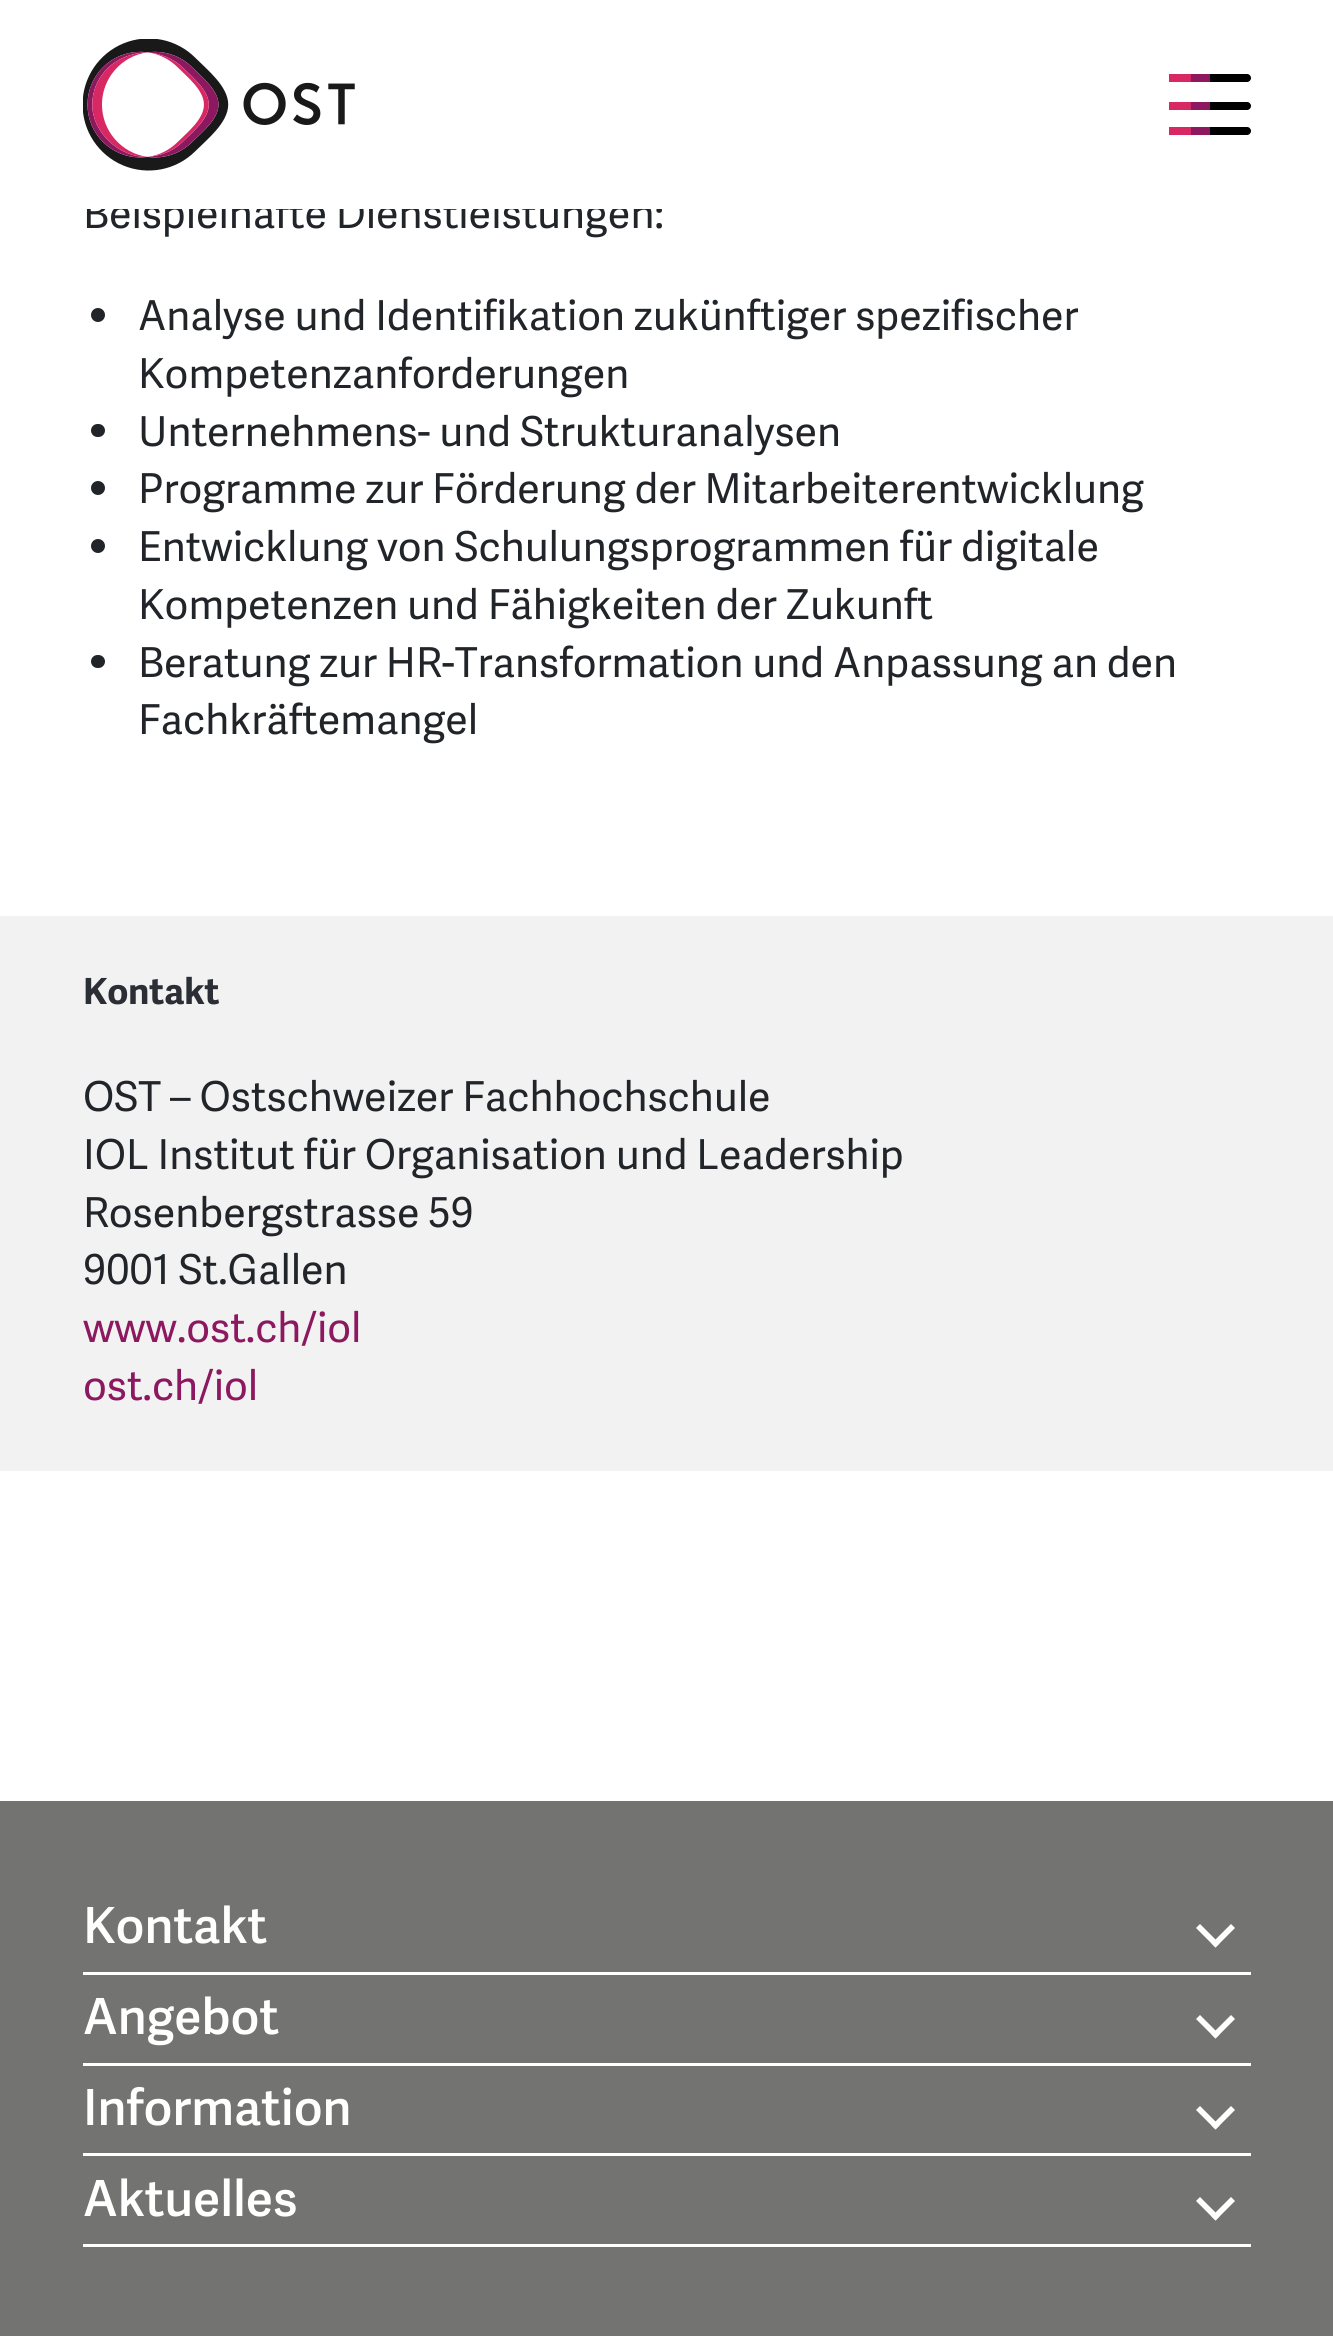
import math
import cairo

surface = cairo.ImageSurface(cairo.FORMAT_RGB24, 1333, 2336)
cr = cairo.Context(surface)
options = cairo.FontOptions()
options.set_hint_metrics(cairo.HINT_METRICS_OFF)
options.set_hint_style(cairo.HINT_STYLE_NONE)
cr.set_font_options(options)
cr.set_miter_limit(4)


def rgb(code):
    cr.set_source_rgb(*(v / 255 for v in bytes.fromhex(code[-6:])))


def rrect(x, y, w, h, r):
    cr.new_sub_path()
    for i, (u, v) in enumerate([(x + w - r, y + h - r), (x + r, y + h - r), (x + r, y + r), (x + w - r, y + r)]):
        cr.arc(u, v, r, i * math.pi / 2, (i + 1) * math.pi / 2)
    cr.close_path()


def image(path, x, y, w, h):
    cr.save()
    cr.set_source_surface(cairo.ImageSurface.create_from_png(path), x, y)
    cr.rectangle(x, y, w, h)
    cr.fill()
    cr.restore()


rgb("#ffffff")
cr.paint()
image("img/1.png", 83, 39, 272, 132)
rgb("#000000")
rrect(1169, 74, 82, 8, 4)
cr.fill()
rgb("#d72864")
cr.rectangle(1169, 74, 22, 8)
cr.fill()
rgb("#8c195f")
cr.rectangle(1191, 74, 19, 8)
cr.fill()
rgb("#000000")
rrect(1169, 102, 82, 8, 4)
cr.fill()
rgb("#d72864")
cr.rectangle(1169, 102, 22, 8)
cr.fill()
rgb("#8c195f")
cr.rectangle(1191, 102, 19, 8)
cr.fill()
rgb("#000000")
rrect(1169, 127, 82, 8, 4)
cr.fill()
rgb("#d72864")
cr.rectangle(1169, 127, 22, 8)
cr.fill()
rgb("#8c195f")
cr.rectangle(1191, 127, 19, 8)
cr.fill()
rgb("#212529")
cr.arc(98, 315, 7, 0, 2 * math.pi)
cr.fill()
rrect(91, 424, 14, 13, 6.5)
cr.fill()
cr.arc(98, 488, 7, 0, 2 * math.pi)
cr.fill()
cr.arc(98, 546, 7, 0, 2 * math.pi)
cr.fill()
rrect(91, 655, 14, 13, 6.5)
cr.fill()
for x, y, w, h, color in [
    (0, 916, 1333, 555, "#f2f2f2"),
    (0, 1801, 1333, 535, "#737372"),
    (83, 1972, 1168, 3, "#ffffff"),
]:
    rgb(color)
    cr.rectangle(x, y, w, h)
    cr.fill()
cr.new_path()
cr.move_to(1231, 1924)
cr.line_to(1235, 1928)
cr.line_to(1215.5, 1947.5)
cr.line_to(1211.5, 1943.5)
cr.close_path()
cr.fill()
cr.new_path()
cr.move_to(1200, 1924)
cr.line_to(1219.5, 1943.5)
cr.line_to(1215.5, 1947.5)
cr.line_to(1196, 1928)
cr.close_path()
cr.fill()
cr.rectangle(83, 2063, 1168, 3)
cr.fill()
cr.new_path()
cr.move_to(1231, 2015)
cr.line_to(1235, 2019)
cr.line_to(1215.5, 2038.5)
cr.line_to(1211.5, 2034.5)
cr.close_path()
cr.fill()
cr.new_path()
cr.move_to(1200, 2015)
cr.line_to(1219.5, 2034.5)
cr.line_to(1215.5, 2038.5)
cr.line_to(1196, 2019)
cr.close_path()
cr.fill()
cr.rectangle(83, 2153, 1168, 3)
cr.fill()
cr.new_path()
cr.move_to(1231, 2106)
cr.line_to(1235, 2110)
cr.line_to(1215.5, 2129.5)
cr.line_to(1211.5, 2125.5)
cr.close_path()
cr.fill()
cr.new_path()
cr.move_to(1200, 2106)
cr.line_to(1219.5, 2125.5)
cr.line_to(1215.5, 2129.5)
cr.line_to(1196, 2110)
cr.close_path()
cr.fill()
cr.rectangle(83, 2244, 1168, 3)
cr.fill()
cr.new_path()
cr.move_to(1231, 2197)
cr.line_to(1235, 2201)
cr.line_to(1215.5, 2220.5)
cr.line_to(1211.5, 2216.5)
cr.close_path()
cr.fill()
cr.new_path()
cr.move_to(1200, 2197)
cr.line_to(1219.5, 2216.5)
cr.line_to(1215.5, 2220.5)
cr.line_to(1196, 2201)
cr.close_path()
cr.fill()
cr.select_font_face("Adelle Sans")
cr.set_font_size(41.25)
rgb("#212529")
cr.move_to(83, 228)
cr.show_text("Beispielhafte Dienstleistungen:")
rgb("#ffffff")
cr.rectangle(86, 196, 576, 13)
cr.fill()
rgb("#212529")
for x, y, s in [
    (138, 330, "Analyse und Identifikation zukünftiger spezifischer"),
    (138, 388, "Kompetenzanforderungen"),
    (138, 446, "Unternehmens- und Strukturanalysen"),
    (138, 503, "Programme zur Förderung der Mitarbeiterentwicklung"),
    (138, 561, "Entwicklung von Schulungsprogrammen für digitale"),
    (138, 619, "Kompetenzen und Fähigkeiten der Zukunft"),
    (138, 677, "Beratung zur HR-Transformation und Anpassung an den"),
    (138, 734, "Fachkräftemangel"),
]:
    cr.move_to(x, y)
    cr.show_text(s)
cr.select_font_face("Adelle Sans", cairo.FONT_SLANT_NORMAL, cairo.FONT_WEIGHT_BOLD)
cr.set_font_size(36)
rgb("#2b2e34")
cr.move_to(83, 1004)
cr.show_text("Kontakt")
cr.select_font_face("Adelle Sans")
cr.set_font_size(41.25)
rgb("#212529")
for x, y, s in [
    (83, 1111, "OST – Ostschweizer Fachhochschule"),
    (83, 1169, "IOL Institut für Organisation und Leadership"),
    (83, 1227, "Rosenbergstrasse 59"),
    (83, 1284, "9001 St.Gallen"),
]:
    cr.move_to(x, y)
    cr.show_text(s)
rgb("#8c195f")
cr.move_to(83, 1342)
cr.show_text("www.ost.ch/iol")
cr.move_to(83, 1400)
cr.show_text("ost.ch/iol")
cr.select_font_face("Adelle Sans SemiBold")
cr.set_font_size(49.75)
rgb("#ffffff")
for x, y, s in [
    (83, 1943, "Kontakt"),
    (83, 2034, "Angebot"),
    (83, 2125, "Information"),
    (83, 2216, "Aktuelles"),
]:
    cr.move_to(x, y)
    cr.show_text(s)
surface.write_to_png("page.png")
